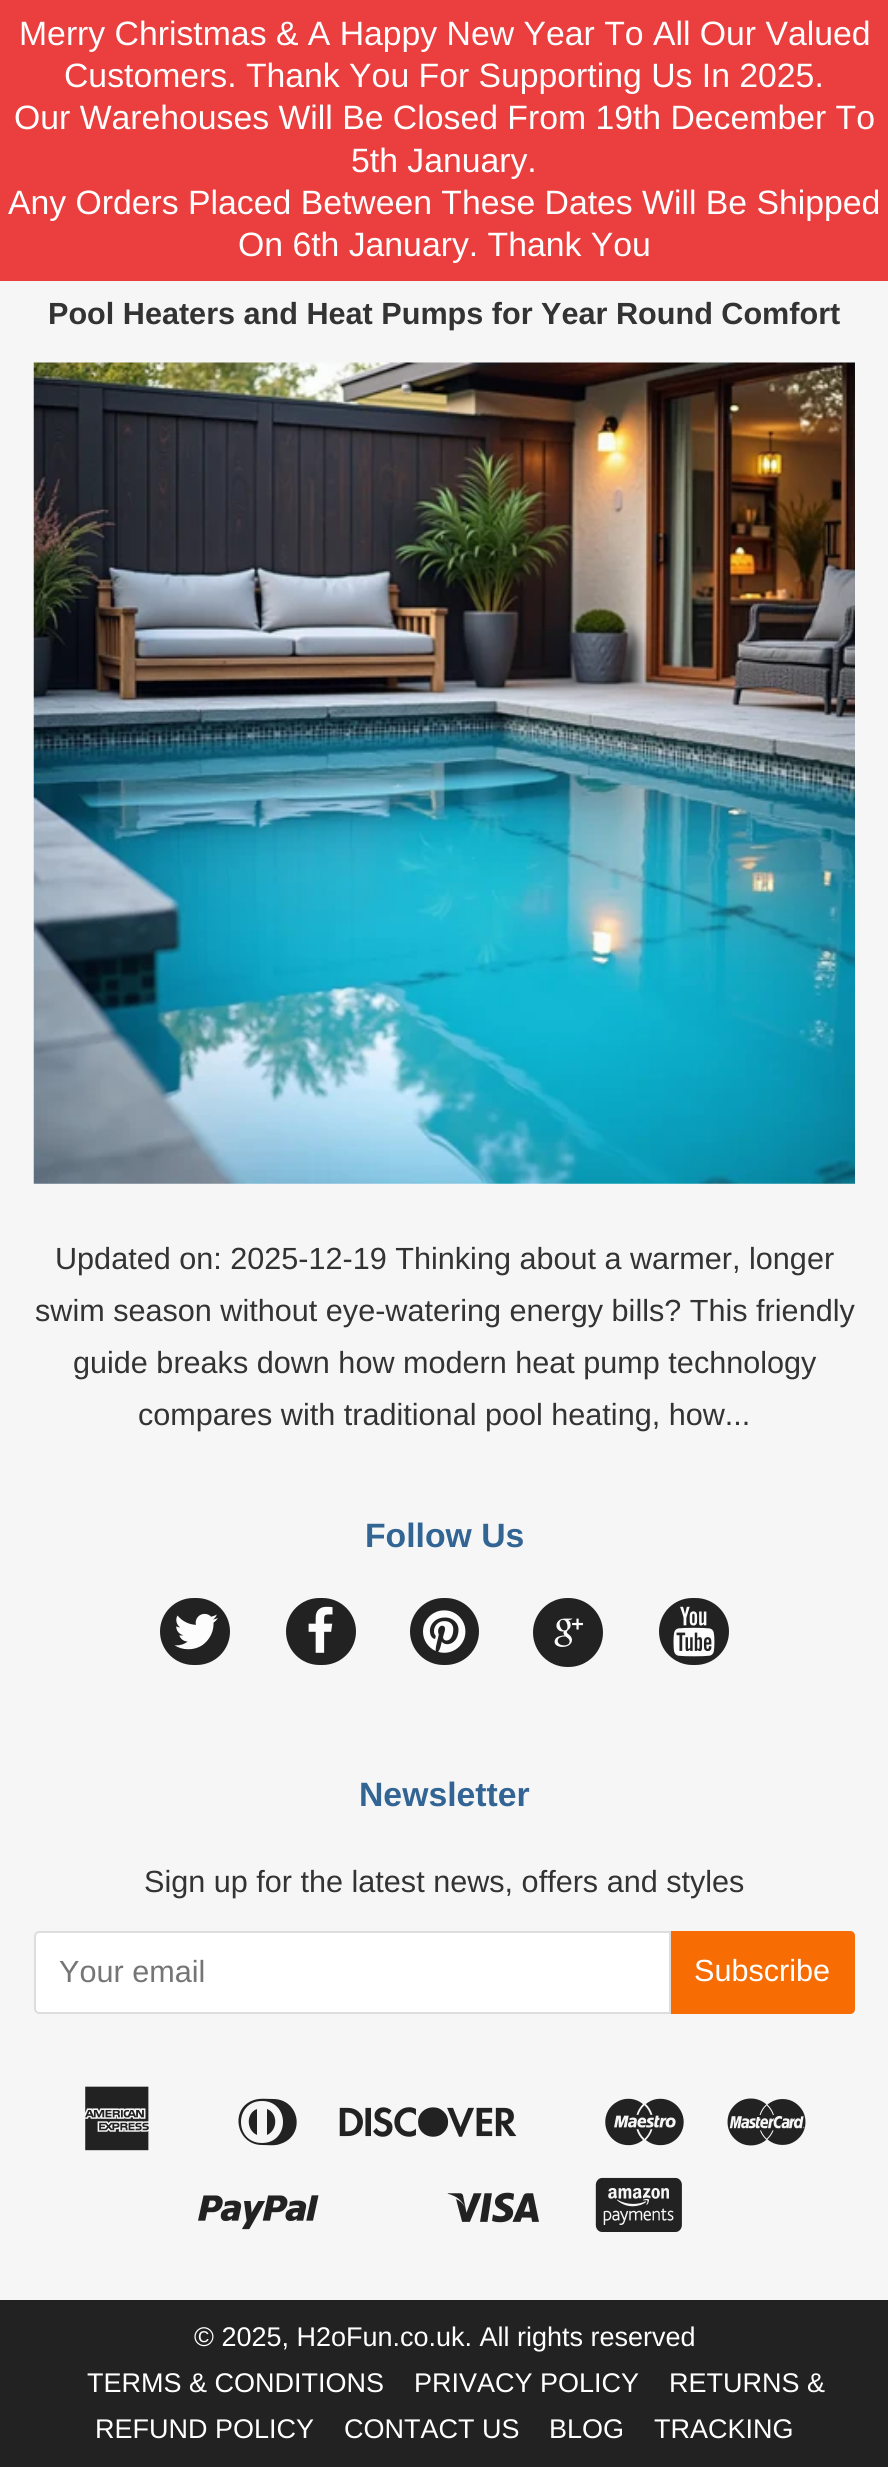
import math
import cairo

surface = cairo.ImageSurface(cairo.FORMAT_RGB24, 888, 2467)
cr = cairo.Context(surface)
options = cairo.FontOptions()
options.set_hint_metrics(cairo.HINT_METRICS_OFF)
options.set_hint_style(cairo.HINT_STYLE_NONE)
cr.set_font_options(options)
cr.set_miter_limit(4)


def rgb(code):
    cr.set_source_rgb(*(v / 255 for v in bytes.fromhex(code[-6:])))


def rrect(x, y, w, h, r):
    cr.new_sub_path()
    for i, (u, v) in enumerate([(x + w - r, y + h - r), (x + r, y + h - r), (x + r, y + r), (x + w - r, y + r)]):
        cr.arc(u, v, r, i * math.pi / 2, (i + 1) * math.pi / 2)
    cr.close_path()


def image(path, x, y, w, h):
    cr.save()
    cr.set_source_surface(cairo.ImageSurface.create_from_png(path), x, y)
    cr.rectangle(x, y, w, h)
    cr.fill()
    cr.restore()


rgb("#f6f6f6")
cr.paint()
rgb("#eb3e3e")
cr.rectangle(0, 0, 888, 281)
cr.fill()
image("img/1.png", 33, 362, 822, 822)
rgb("#222222")
rrect(160, 1598, 70, 67, 33.5)
cr.fill()
image("img/2.png", 174, 1613, 44, 37)
rrect(286, 1598, 70, 67, 33.5)
cr.fill()
image("img/3.png", 308, 1606, 25, 47)
rrect(410, 1598, 69, 67, 33.5)
cr.fill()
image("img/4.png", 423, 1610, 43, 43)
rrect(533, 1598, 70, 69, 34.5)
cr.fill()
image("img/5.png", 554, 1618, 30, 29)
rrect(659, 1598, 70, 67, 33.5)
cr.fill()
image("img/6.png", 673, 1606, 42, 51)
rgb("#ffffff")
cr.new_path()
cr.move_to(39, 1932)
cr.line_to(670, 1932)
cr.line_to(670, 2013)
cr.line_to(39, 2013)
cr.curve_to(37, 2013, 35, 2011, 35, 2009)
cr.line_to(35, 1936)
cr.curve_to(35, 1934, 37, 1932, 39, 1932)
cr.close_path()
cr.fill_preserve()
rgb("#dddddd")
cr.stroke()
rgb("#f76c03")
cr.new_path()
cr.move_to(671, 1931)
cr.line_to(850, 1931)
cr.curve_to(853, 1931, 855, 1933, 855, 1936)
cr.line_to(855, 2009)
cr.curve_to(855, 2012, 853, 2014, 850, 2014)
cr.line_to(671, 2014)
cr.close_path()
cr.fill()
image("img/7.png", 85, 2086, 64, 65)
rgb("#222222")
cr.new_path()
cr.move_to(273, 2099)
cr.curve_to(300, 2099, 306, 2136, 280, 2144)
cr.curve_to(275, 2146, 268, 2145, 262, 2145)
cr.curve_to(236, 2145, 229, 2108, 254, 2100)
cr.curve_to(260, 2098, 267, 2099, 273, 2099)
cr.close_path()
cr.move_to(262, 2143)
cr.curve_to(290, 2143, 290, 2101, 262, 2101)
cr.curve_to(234, 2101, 234, 2143, 262, 2143)
cr.close_path()
cr.move_to(257, 2135)
cr.curve_to(246, 2130, 246, 2113, 257, 2109)
cr.close_path()
cr.move_to(267, 2109)
cr.curve_to(278, 2113, 278, 2130, 267, 2135)
cr.close_path()
cr.fill()
image("img/8.png", 339, 2107, 178, 30)
image("img/9.png", 605, 2098, 79, 48)
image("img/10.png", 727, 2098, 79, 48)
image("img/11.png", 198, 2195, 121, 35)
image("img/12.png", 447, 2192, 92, 31)
image("img/13.png", 595, 2177, 87, 55)
cr.rectangle(0, 2300, 888, 167)
cr.fill()
cr.select_font_face("Liberation Sans")
cr.set_font_size(33.75)
rgb("#ffffff")
for x, y, s in [
    (19, 45, "Merry Christmas & A Happy New Year To All Our Valued"),
    (64, 87, "Customers. Thank You For Supporting Us In 2025."),
    (14, 129, "Our Warehouses Will Be Closed From 19th December To"),
    (351, 172, "5th January."),
    (8, 214, "Any Orders Placed Between These Dates Will Be Shipped"),
    (238, 256, "On 6th January. Thank You"),
]:
    cr.move_to(x, y)
    cr.show_text(s)
cr.select_font_face("Liberation Sans", cairo.FONT_SLANT_NORMAL, cairo.FONT_WEIGHT_BOLD)
cr.set_font_size(30.6)
rgb("#333333")
cr.move_to(48, 324)
cr.show_text("Pool Heaters and Heat Pumps for Year Round Comfort")
cr.select_font_face("Liberation Sans")
for x, y, s in [
    (55, 1269, "Updated on: 2025-12-19 Thinking about a warmer, longer"),
    (35, 1321, "swim season without eye-watering energy bills? This friendly"),
    (73, 1373, "guide breaks down how modern heat pump technology"),
    (138, 1425, "compares with traditional pool heating, how..."),
]:
    cr.move_to(x, y)
    cr.show_text(s)
cr.select_font_face("Liberation Sans", cairo.FONT_SLANT_NORMAL, cairo.FONT_WEIGHT_BOLD)
cr.set_font_size(33.75)
rgb("#326494")
cr.move_to(365, 1547)
cr.show_text("Follow Us")
cr.move_to(359, 1806)
cr.show_text("Newsletter")
cr.select_font_face("Liberation Sans")
cr.set_font_size(30.6)
rgb("#333333")
cr.move_to(144, 1892)
cr.show_text("Sign up for the latest news, offers and styles")
rgb("#757575")
cr.move_to(59, 1982)
cr.show_text("Your email")
rgb("#ffffff")
cr.move_to(694, 1981)
cr.show_text("Subscribe")
cr.set_font_size(27)
for x, y, s in [
    (194, 2346, "© 2025, H2oFun.co.uk. All rights reserved"),
    (87, 2392, "TERMS & CONDITIONS"),
    (414, 2392, "PRIVACY POLICY"),
    (669, 2392, "RETURNS &"),
    (95, 2438, "REFUND POLICY"),
    (344, 2438, "CONTACT US"),
    (549, 2438, "BLOG"),
    (654, 2438, "TRACKING"),
]:
    cr.move_to(x, y)
    cr.show_text(s)
surface.write_to_png("page.png")
